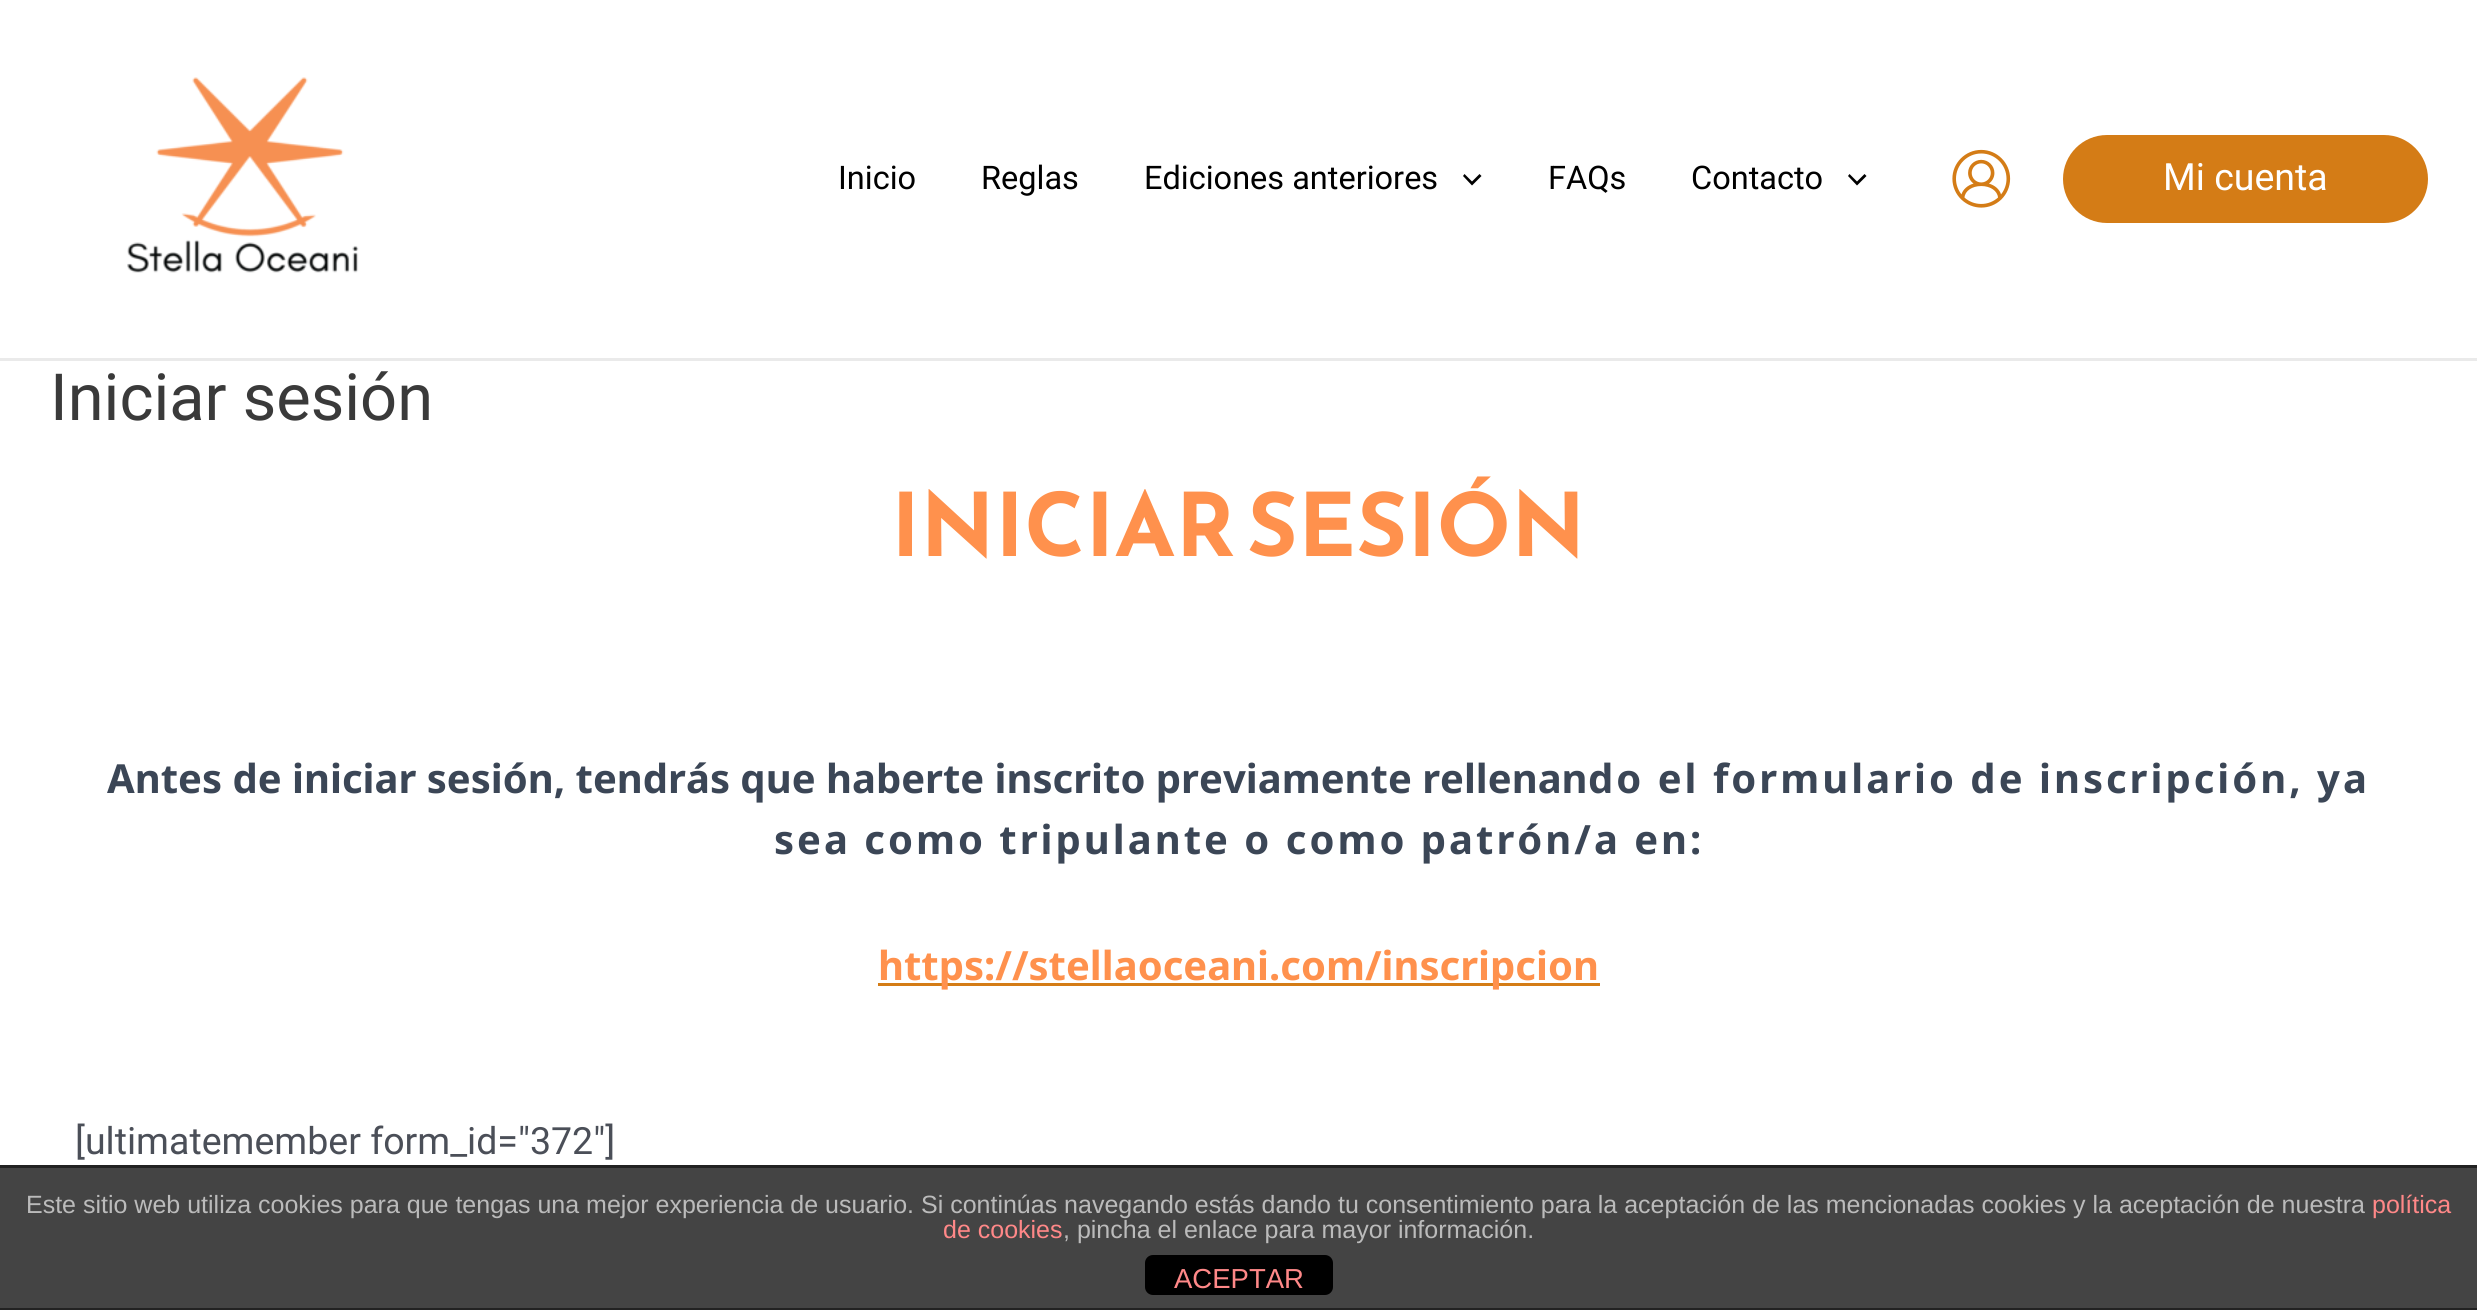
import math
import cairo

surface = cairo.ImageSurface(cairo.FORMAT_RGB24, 2477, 1310)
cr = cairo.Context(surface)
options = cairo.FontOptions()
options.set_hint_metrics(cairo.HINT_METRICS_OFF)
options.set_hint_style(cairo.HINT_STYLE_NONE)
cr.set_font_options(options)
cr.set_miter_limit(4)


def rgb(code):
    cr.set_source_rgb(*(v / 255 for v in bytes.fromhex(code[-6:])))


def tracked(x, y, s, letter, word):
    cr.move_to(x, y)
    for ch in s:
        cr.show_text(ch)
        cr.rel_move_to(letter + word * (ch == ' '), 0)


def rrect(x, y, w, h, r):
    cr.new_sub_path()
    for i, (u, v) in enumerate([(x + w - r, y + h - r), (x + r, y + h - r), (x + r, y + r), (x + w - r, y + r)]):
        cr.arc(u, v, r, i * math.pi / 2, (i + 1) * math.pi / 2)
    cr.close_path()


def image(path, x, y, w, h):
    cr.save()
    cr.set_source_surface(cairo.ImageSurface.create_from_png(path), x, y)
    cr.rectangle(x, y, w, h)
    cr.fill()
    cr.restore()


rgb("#ffffff")
cr.paint()
rgb("#eaeaea")
cr.rectangle(0, 358, 2477, 3)
cr.fill()
image("img/1.png", 127, 77, 232, 196)
rgb("#000000")
cr.new_path()
cr.move_to(1463, 176)
cr.line_to(1472, 185.5)
cr.line_to(1481.5, 176)
cr.line_to(1479.5, 174)
cr.line_to(1472, 181.5)
cr.line_to(1464.5, 174)
cr.close_path()
cr.fill()
cr.new_path()
cr.move_to(1848, 176)
cr.line_to(1857, 185.5)
cr.line_to(1866.5, 176)
cr.line_to(1864.5, 174)
cr.line_to(1857, 181.5)
cr.line_to(1849.5, 174)
cr.close_path()
cr.fill()
image("img/2.png", 1952, 149, 59, 59)
rgb("#d47c16")
rrect(2063, 135, 365, 88, 44)
cr.fill()
for x, y, w, h, color in [
    (878, 983, 722, 3, "#d47c16"),
    (0, 1168, 2477, 140, "#444444"),
    (0, 1165, 2477, 3, "#222222"),
    (0, 1308, 2477, 2, "#222222"),
]:
    rgb(color)
    cr.rectangle(x, y, w, h)
    cr.fill()
rgb("#000000")
rrect(1145, 1255, 188, 40, 8)
cr.fill()
cr.select_font_face("Roboto")
cr.set_font_size(32.5)
for x, y, s in [
    (838, 189, "Inicio"),
    (981, 189, "Reglas"),
    (1144, 189, "Ediciones anteriores"),
    (1548, 189, "FAQs"),
    (1691, 189, "Contacto"),
]:
    cr.move_to(x, y)
    cr.show_text(s)
cr.set_font_size(37.5)
rgb("#ffffff")
cr.move_to(2163, 190)
cr.show_text("Mi cuenta")
cr.set_font_size(65)
rgb("#3a3a3a")
cr.move_to(50, 420)
cr.show_text("Iniciar sesión")
cr.select_font_face("Reem Kufi", cairo.FONT_SLANT_NORMAL, cairo.FONT_WEIGHT_BOLD)
cr.set_font_size(87.5)
rgb("#ff914d")
cr.move_to(891, 556)
cr.show_text("INICIAR SESIÓN")
cr.select_font_face("Noto Sans", cairo.FONT_SLANT_NORMAL, cairo.FONT_WEIGHT_BOLD)
cr.set_font_size(40)
rgb("#3b4656")
cr.move_to(107, 793)
cr.show_text("Antes de iniciar sesión, tendrás que haberte inscrito previamente rellenan")
tracked(1588, 793, "do el formulario de inscripción, ya", 3, 0)
tracked(774, 854, "sea como tripulante o como patrón/a en:", 3, 0)
rgb("#ff914d")
cr.move_to(878, 980)
cr.show_text("https://stellaoceani.com/inscripcion")
cr.select_font_face("Roboto")
cr.set_font_size(37.5)
rgb("#4b4f58")
cr.move_to(75, 1154)
cr.show_text("[ultimatemember form_id=\"372\"]")
cr.select_font_face("Liberation Sans")
cr.set_font_size(25)
rgb("#bbbbbb")
cr.move_to(26, 1213)
cr.show_text("Este sitio web utiliza cookies para que tengas una mejor experiencia de usuario. Si continúas navegando estás dando tu consentimiento para la aceptación de las mencionadas cookies y la aceptación de nuestra")
rgb("#ff8888")
cr.move_to(2372, 1213)
cr.show_text("política")
cr.move_to(943, 1238)
cr.show_text("de cookies")
rgb("#bbbbbb")
cr.move_to(1063, 1238)
cr.show_text(", pincha el enlace para mayor información.")
cr.set_font_size(27.5)
rgb("#ff8888")
cr.move_to(1174, 1288)
cr.show_text("ACEPTAR")
surface.write_to_png("page.png")
